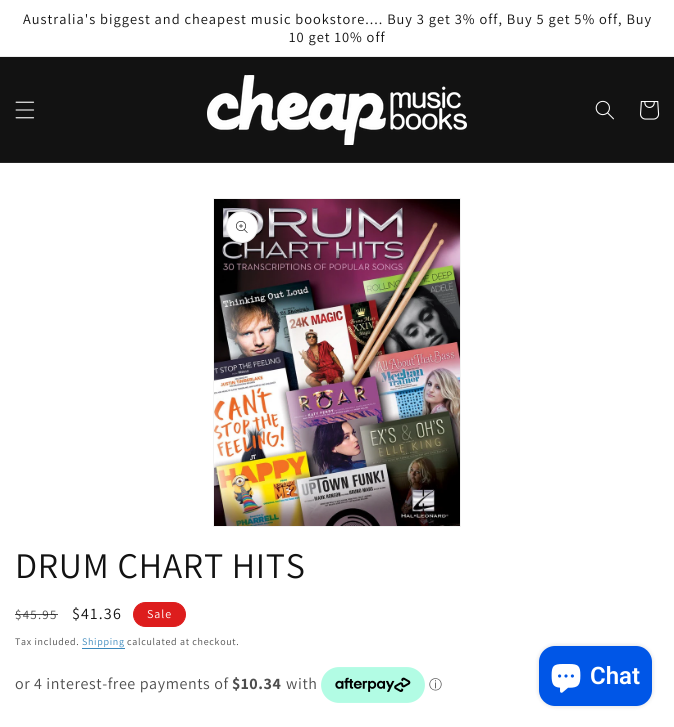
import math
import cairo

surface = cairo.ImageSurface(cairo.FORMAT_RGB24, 674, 727)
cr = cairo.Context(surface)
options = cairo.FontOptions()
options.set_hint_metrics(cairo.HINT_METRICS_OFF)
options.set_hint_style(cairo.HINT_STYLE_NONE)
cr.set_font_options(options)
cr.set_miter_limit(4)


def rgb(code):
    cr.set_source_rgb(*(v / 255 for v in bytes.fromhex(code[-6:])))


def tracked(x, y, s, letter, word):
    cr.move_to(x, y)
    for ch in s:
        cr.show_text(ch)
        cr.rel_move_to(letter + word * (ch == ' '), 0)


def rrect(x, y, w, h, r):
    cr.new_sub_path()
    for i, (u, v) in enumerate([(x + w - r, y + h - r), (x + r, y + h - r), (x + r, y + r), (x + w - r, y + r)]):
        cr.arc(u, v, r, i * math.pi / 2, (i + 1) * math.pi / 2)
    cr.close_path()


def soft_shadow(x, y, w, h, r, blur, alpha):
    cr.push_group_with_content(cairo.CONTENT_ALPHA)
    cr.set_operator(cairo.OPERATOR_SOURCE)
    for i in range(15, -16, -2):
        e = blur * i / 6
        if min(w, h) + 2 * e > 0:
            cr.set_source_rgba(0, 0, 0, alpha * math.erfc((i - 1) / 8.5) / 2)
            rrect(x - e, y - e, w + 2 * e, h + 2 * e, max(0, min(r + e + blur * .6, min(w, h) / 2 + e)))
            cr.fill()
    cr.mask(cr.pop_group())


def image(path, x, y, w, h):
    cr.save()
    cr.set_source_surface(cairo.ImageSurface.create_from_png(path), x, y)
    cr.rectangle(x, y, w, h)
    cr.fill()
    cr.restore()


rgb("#ffffff")
cr.paint()
for x, y, w, h, color in [
    (0, 56, 674, 1, "#ececec"),
    (0, 57, 674, 105, "#121212"),
    (0, 162, 674, 1, "#252525"),
]:
    rgb(color)
    cr.rectangle(x, y, w, h)
    cr.fill()
image("img/1.png", 15, 101, 20, 18)
image("img/2.png", 207, 75, 260, 70)
image("img/3.png", 595, 100, 19, 20)
image("img/4.png", 640, 101, 20, 19)
cr.rectangle(213.5, 198.5, 247, 328)
rgb("#f3f3f3")
cr.set_line_width(1)
cr.stroke()
image("img/5.png", 214, 199, 246, 327)
rgb("#ffffff")
cr.arc(242, 227, 16, 0, 2 * math.pi)
cr.fill()
cr.arc(242, 227, 15.5, 0, 2 * math.pi)
cr.set_source_rgba(0.071, 0.071, 0.071, 0.1)
cr.stroke()
image("img/6.png", 236, 221, 12, 12)
rgb("#dd1d1d")
rrect(133.5, 602.5, 52, 24, 12)
cr.fill_preserve()
cr.stroke()
rgb("#3a88bc")
cr.rectangle(82, 648, 43, 1)
cr.fill()
image("img/7.png", 321, 667, 104, 36)
rgb("#000000")
soft_shadow(539, 646, 113, 60, 16, 2.5, 0.15)
rgb("#0056e7")
rrect(539, 646, 113, 60, 16)
cr.fill()
image("img/8.png", 551, 664, 30, 29)
cr.select_font_face("Assistant")
cr.set_font_size(14.4)
rgb("#121212")
tracked(23, 24, "Australia's biggest and cheapest music bookstore.... Buy 3 get 3% off, Buy 5 get 5% off, Buy", 1, 0)
tracked(289, 42, "10 get 10% off", 1, 0)
cr.set_font_size(36)
tracked(15, 578, "DRUM CHART HITS", 0.75, 0)
cr.set_font_size(13)
rgb("#4d4d4d")
tracked(15, 619, "$45.95", 1.25, 0)
cr.set_source_rgba(0.071, 0.071, 0.071, 0.75)
cr.rectangle(15, 614, 43, 1)
cr.fill()
cr.set_font_size(16)
rgb("#121212")
tracked(72, 619, "$41.36", 1.25, 0)
cr.set_font_size(12)
rgb("#ffffff")
tracked(147, 618, "Sale", 1, 0)
cr.set_font_size(10)
rgb("#4d4d4d")
tracked(15, 645, "Tax included.", 0.7, 0)
rgb("#3a88bc")
tracked(82, 645, "Shipping", 0.7, 0)
rgb("#4d4d4d")
tracked(127, 645, "calculated at checkout.", 0.7, 0)
cr.set_font_size(16)
tracked(15, 689, "or 4 interest-free payments of", 0.6, 0)
cr.select_font_face("Assistant", cairo.FONT_SLANT_NORMAL, cairo.FONT_WEIGHT_BOLD)
tracked(232, 689, "$10.34", 0.6, 0)
cr.select_font_face("Assistant")
tracked(286, 689, "with", 0.6, 0)
cr.select_font_face("WenQuanYi Zen Hei Medium")
cr.set_font_size(13)
cr.move_to(429, 689)
cr.show_text("ⓘ")
cr.select_font_face("Roboto SemiBold")
cr.set_font_size(24)
rgb("#ffffff")
cr.move_to(590, 684)
cr.show_text("Chat")
surface.write_to_png("page.png")
